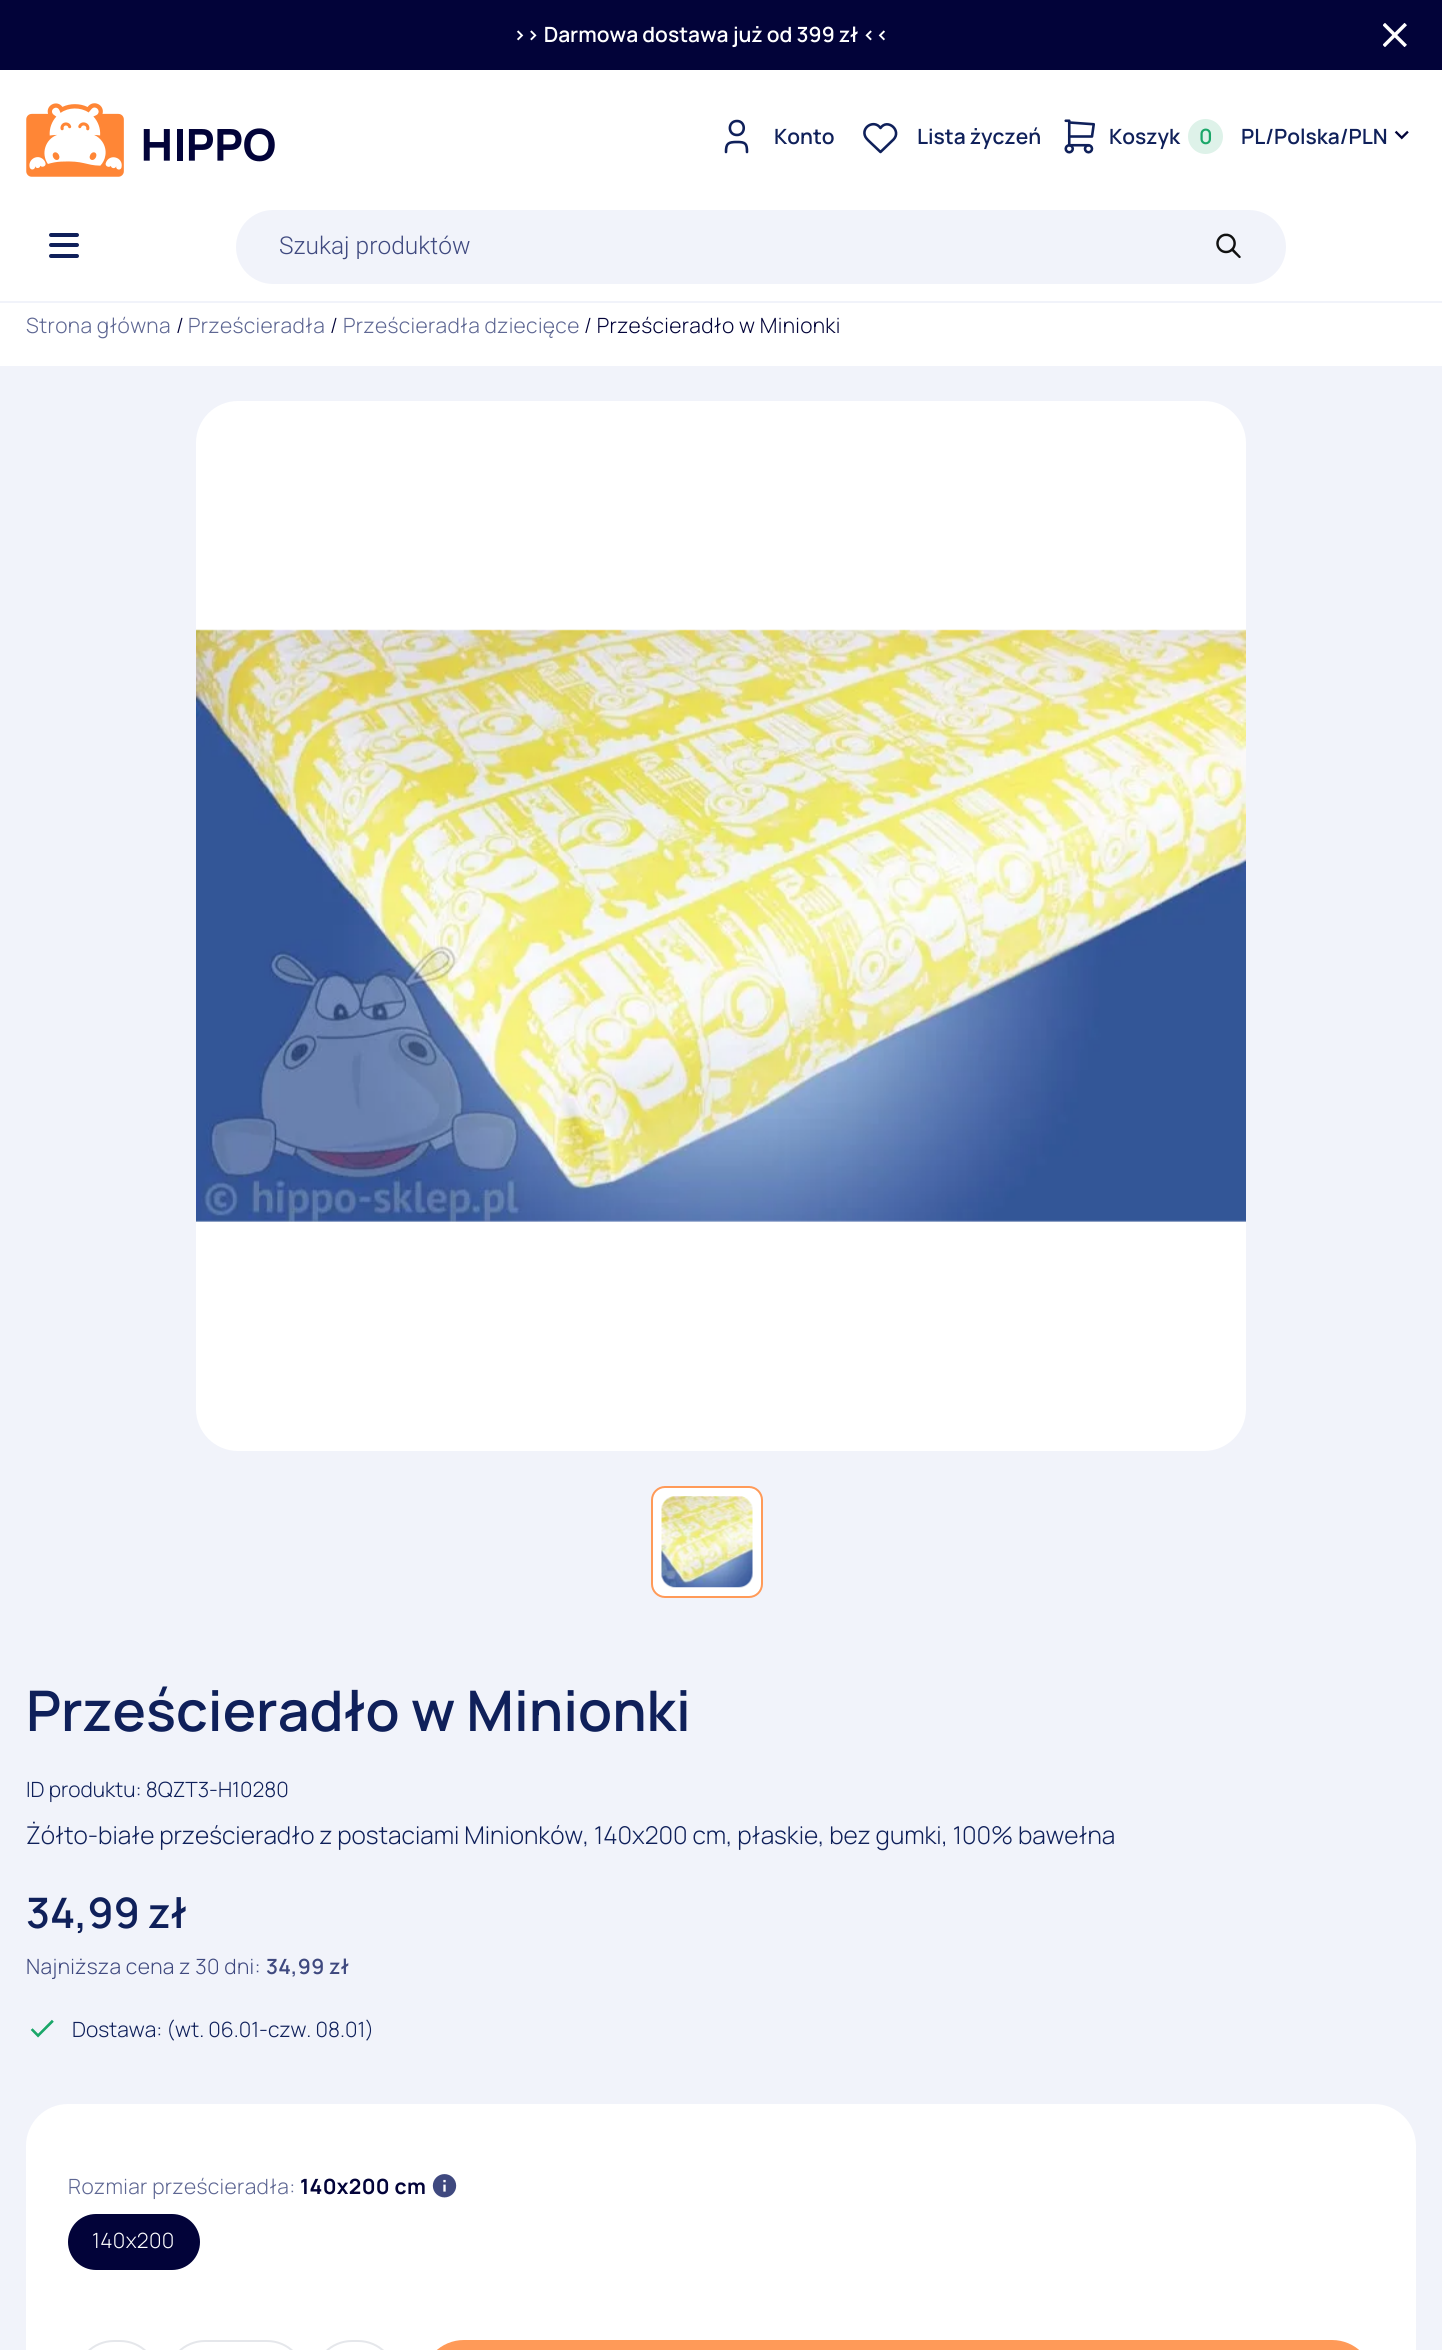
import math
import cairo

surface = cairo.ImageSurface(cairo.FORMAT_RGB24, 1442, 2350)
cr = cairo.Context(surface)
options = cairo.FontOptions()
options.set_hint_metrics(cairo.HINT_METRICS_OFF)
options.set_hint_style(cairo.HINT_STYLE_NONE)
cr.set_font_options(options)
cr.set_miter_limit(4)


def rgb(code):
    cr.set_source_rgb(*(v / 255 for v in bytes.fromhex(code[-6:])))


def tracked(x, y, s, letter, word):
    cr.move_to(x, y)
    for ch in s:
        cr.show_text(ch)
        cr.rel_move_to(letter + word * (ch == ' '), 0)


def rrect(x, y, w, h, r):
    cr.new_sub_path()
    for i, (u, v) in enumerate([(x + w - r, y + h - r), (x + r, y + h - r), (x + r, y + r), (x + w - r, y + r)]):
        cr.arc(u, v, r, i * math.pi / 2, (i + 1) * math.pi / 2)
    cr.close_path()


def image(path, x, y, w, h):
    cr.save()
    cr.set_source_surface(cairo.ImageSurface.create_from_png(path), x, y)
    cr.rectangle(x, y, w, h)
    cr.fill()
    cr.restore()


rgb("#ffffff")
cr.paint()
rgb("#f1f3fa")
cr.rectangle(0, 301, 1442, 2)
cr.fill()
rgb("#020339")
cr.rectangle(0, 0, 1442, 70)
cr.fill()
image("img/1.png", 1383, 23, 24, 24)
image("img/2.png", 26, 103, 249, 74)
cr.new_path()
cr.move_to(737, 135)
cr.curve_to(746, 135, 746, 121, 737, 121)
cr.curve_to(727.5, 121, 727.5, 135, 737, 135)
cr.close_path()
cr.move_to(726, 152)
cr.curve_to(726, 143.5, 728, 142, 737, 142)
cr.curve_to(745.5, 142, 747, 143.5, 747, 152)
rgb("#0f205a")
cr.set_line_width(2.6)
cr.set_line_cap(cairo.LINE_CAP_ROUND)
cr.set_line_join(cairo.LINE_JOIN_ROUND)
cr.stroke()
cr.new_path()
cr.move_to(893.5, 139.5)
cr.line_to(880.5, 152)
cr.line_to(871.5, 143.5)
cr.curve_to(869.5, 141.5, 867, 139.5, 865.5, 137)
cr.curve_to(860.5, 127.5, 874, 119, 880.5, 128)
cr.curve_to(887.5, 118, 902, 130.5, 893.5, 139.5)
cr.stroke()
image("img/3.png", 1064, 119, 31, 35)
rgb("#def2e9")
cr.arc(1205.5, 136.5, 17.5, 0, 2 * math.pi)
cr.fill()
image("img/4.png", 1394, 130, 15, 10)
rgb("#0f205a")
rrect(49, 233, 30, 4, 2)
cr.fill()
rrect(49, 243, 30, 4, 2)
cr.fill()
rrect(49, 254, 30, 4, 2)
cr.fill()
rgb("#f1f3fa")
rrect(236, 210, 1050, 74, 37)
cr.fill()
image("img/5.png", 1216, 233, 25, 26)
cr.rectangle(0, 366, 1442, 1984)
cr.fill()
rgb("#ffffff")
rrect(196, 401, 1050, 1050, 42)
cr.fill()
image("img/6.png", 196, 629, 1050, 593)
rrect(652, 1487, 110, 110, 13)
cr.fill_preserve()
rgb("#ff9a58")
cr.set_line_width(2)
cr.set_line_cap(cairo.LINE_CAP_BUTT)
cr.set_line_join(cairo.LINE_JOIN_MITER)
cr.stroke()
image("img/7.png", 661, 1496, 92, 92)
image("img/8.png", 30, 2019, 24, 19)
rgb("#ffffff")
rrect(26, 2104, 1390, 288, 42)
cr.fill()
image("img/9.png", 432, 2174, 25, 24)
rgb("#020339")
rrect(69, 2215, 130, 54, 27)
cr.fill_preserve()
cr.stroke()
rrect(76, 2341, 82, 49, 38)
rgb("#e5e7eb")
cr.stroke()
rrect(167, 2341, 138, 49, 38)
cr.stroke()
rrect(314, 2341, 82, 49, 38)
cr.stroke()
rgb("#ff9a58")
rrect(422, 2340, 952, 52, 42)
cr.fill()
cr.select_font_face("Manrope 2 ExtraLight")
cr.set_font_size(21)
rgb("#ffffff")
cr.move_to(513, 42)
cr.show_text(">> Darmowa dostawa już od 399 zł <<")
rgb("#0f205a")
for x, y, s in [
    (774, 144, "Konto"),
    (917, 144, "Lista życzeń"),
    (1109, 144, "Koszyk"),
]:
    cr.move_to(x, y)
    cr.show_text(s)
rgb("#1ba769")
cr.move_to(1199, 144)
cr.show_text("0")
rgb("#0f205a")
cr.move_to(1241, 144)
cr.show_text("PL/Polska/PLN")
cr.select_font_face("Roboto Light")
cr.set_font_size(24.5)
rgb("#3f497f")
cr.move_to(279, 254)
cr.show_text("Szukaj produktów")
cr.select_font_face("Manrope ExtraLight")
cr.set_font_size(21)
rgb("#5e6793")
tracked(26, 333, "Strona główna", 0.35, 0)
rgb("#020339")
tracked(176, 333, "/", 0.35, 0)
rgb("#5e6793")
tracked(188, 333, "Prześcieradła", 0.35, 0)
rgb("#020339")
tracked(330, 333, "/", 0.35, 0)
rgb("#5e6793")
tracked(343, 333, "Prześcieradła dziecięce", 0.35, 0)
rgb("#020339")
tracked(584, 333, "/ Prześcieradło w Minionki", 0.35, 0)
cr.select_font_face("Manrope 2 ExtraLight")
cr.set_font_size(56)
rgb("#0f205a")
cr.move_to(26, 1731)
cr.show_text("Prześcieradło w Minionki")
cr.select_font_face("Manrope ExtraLight")
cr.set_font_size(21)
cr.move_to(26, 1797)
cr.show_text("ID produktu: 8QZT3-H10280")
cr.set_font_size(24.5)
cr.move_to(26, 1844)
cr.show_text("Żółto-białe prześcieradło z postaciami Minionków, 140x200 cm, płaskie, bez gumki, 100% bawełna")
cr.select_font_face("Manrope 2 ExtraLight")
cr.set_font_size(42)
cr.move_to(26, 1928)
cr.show_text("34,99 zł")
cr.select_font_face("Manrope ExtraLight")
cr.set_font_size(21)
rgb("#3f497f")
tracked(26, 1974, "Najniższa cena z 30 dni:", 0.35, 0)
cr.select_font_face("Manrope 2 ExtraLight")
tracked(266, 1974, "34,99 zł", 0.35, 0)
cr.select_font_face("Manrope ExtraLight")
rgb("#0f205a")
cr.move_to(72, 2037)
cr.show_text("Dostawa: (wt. 06.01-czw. 08.01)")
rgb("#5e6793")
tracked(68, 2194, "Rozmiar prześcieradła:", 0.35, 0)
cr.select_font_face("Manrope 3 ExtraLight")
rgb("#020339")
tracked(300, 2194, "140x200 cm", 0.35, 0)
cr.select_font_face("Manrope ExtraLight")
rgb("#ffffff")
tracked(92, 2248, "140x200", 0.35, 0)
surface.write_to_png("page.png")
